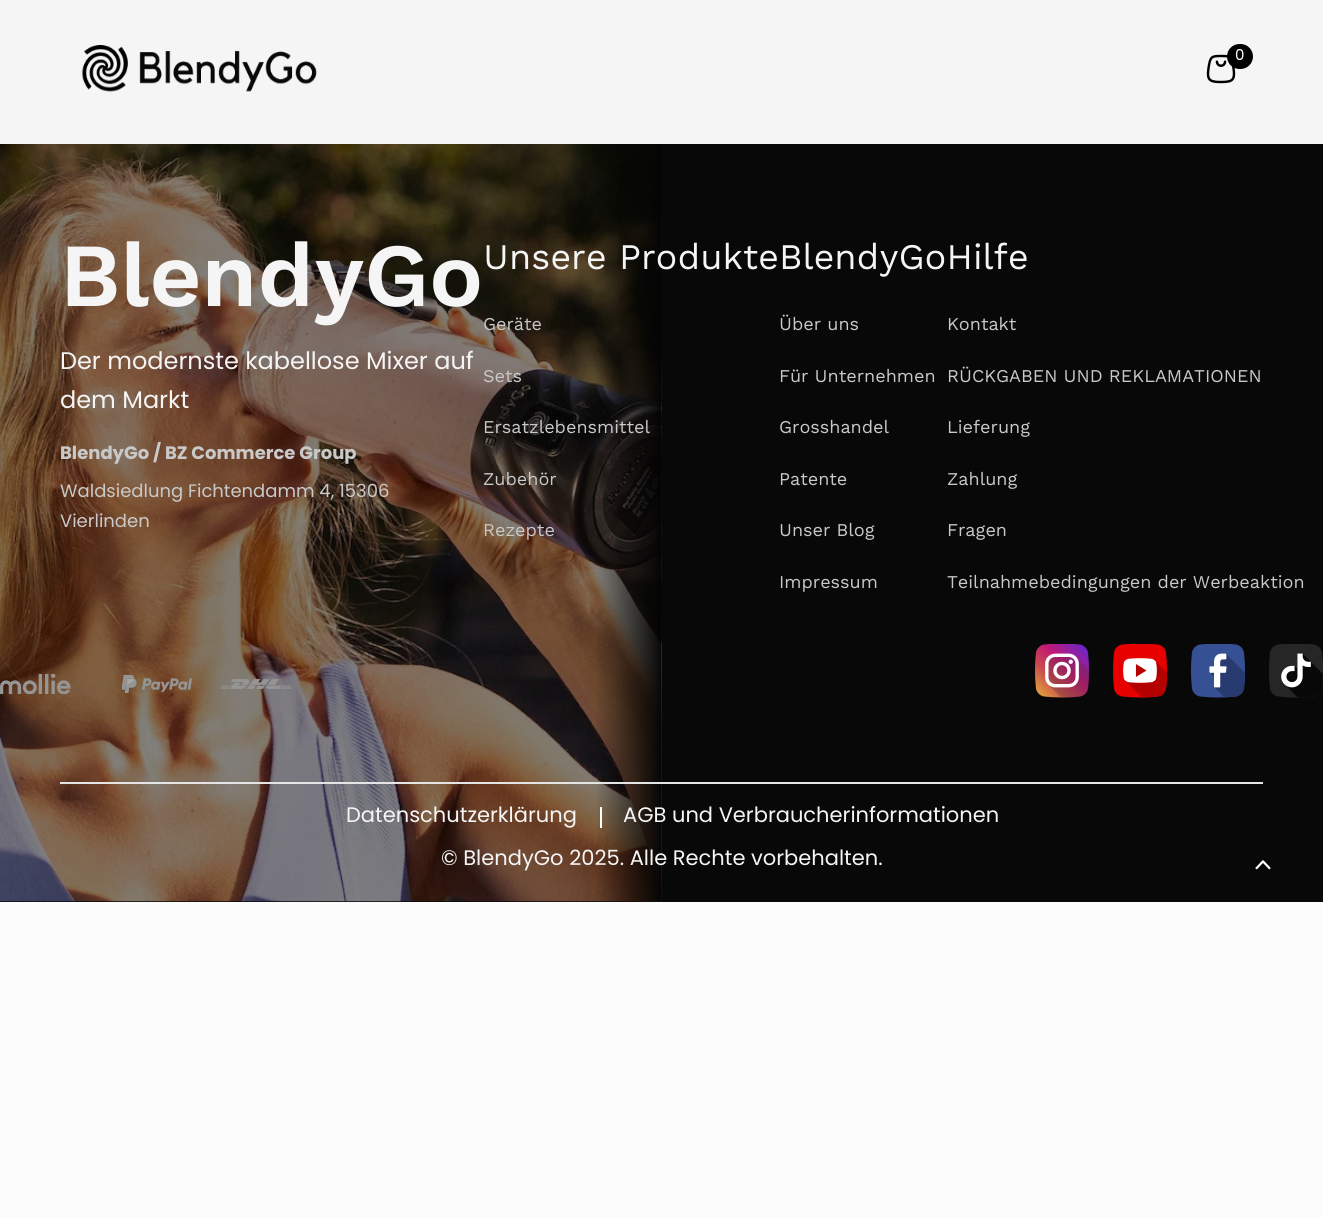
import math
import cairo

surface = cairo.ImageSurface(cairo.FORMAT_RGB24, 1323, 1218)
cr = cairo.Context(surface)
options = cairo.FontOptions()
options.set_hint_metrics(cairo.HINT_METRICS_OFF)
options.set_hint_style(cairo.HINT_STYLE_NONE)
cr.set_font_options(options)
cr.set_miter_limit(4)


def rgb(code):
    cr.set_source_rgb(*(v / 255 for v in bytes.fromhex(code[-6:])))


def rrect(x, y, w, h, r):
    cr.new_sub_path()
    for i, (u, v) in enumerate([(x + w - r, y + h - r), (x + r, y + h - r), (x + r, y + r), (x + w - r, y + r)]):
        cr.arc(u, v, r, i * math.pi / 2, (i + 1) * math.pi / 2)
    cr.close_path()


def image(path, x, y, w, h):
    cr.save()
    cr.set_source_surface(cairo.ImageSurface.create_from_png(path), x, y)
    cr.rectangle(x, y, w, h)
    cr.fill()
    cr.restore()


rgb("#fcfcfc")
cr.paint()
rgb("#f5f5f5")
cr.rectangle(0, 0, 1323, 144)
cr.fill()
image("img/1.png", 82, 45, 235, 47)
image("img/2.png", 1206, 54, 30, 30)
rgb("#000000")
rrect(1227, 44, 26, 25, 12.5)
cr.fill()
rgb("#080808")
cr.rectangle(0, 144, 1323, 758)
cr.fill()
image("img/3.png", 0, 144, 662, 758)
image("img/4.png", 0, 674, 71, 20)
image("img/5.png", 122, 675, 70, 18)
image("img/6.png", 221, 679, 70, 10)
image("img/7.png", 1035, 644, 54, 54)
image("img/8.png", 1113, 644, 54, 54)
image("img/9.png", 1191, 644, 54, 54)
image("img/10.png", 1269, 644, 54, 54)
rgb("#e5e5e5")
cr.rectangle(60, 782, 1203, 2)
cr.fill()
rgb("#ffffff")
cr.rectangle(600, 807, 2, 21)
cr.fill()
image("img/11.png", 1255, 860, 16, 10)
cr.select_font_face("Poppins")
cr.set_font_size(15)
cr.move_to(1235, 60)
cr.show_text("0")
cr.select_font_face("Work Sans SemiBold")
cr.set_font_size(90)
rgb("#f5f5f5")
cr.move_to(60, 306)
cr.show_text("BlendyGo")
cr.select_font_face("Poppins")
cr.set_font_size(24)
cr.move_to(60, 369)
cr.show_text("Der modernste kabellose Mixer auf")
cr.move_to(60, 408)
cr.show_text("dem Markt")
cr.select_font_face("Poppins", cairo.FONT_SLANT_NORMAL, cairo.FONT_WEIGHT_BOLD)
cr.set_font_size(18)
rgb("#c9c9c9")
cr.move_to(60, 459)
cr.show_text("BlendyGo / BZ Commerce Group")
cr.select_font_face("Poppins")
cr.move_to(60, 497)
cr.show_text("Waldsiedlung Fichtendamm 4, 15306")
cr.move_to(60, 527)
cr.show_text("Vierlinden")
cr.select_font_face("Work Sans")
cr.set_font_size(36)
rgb("#f5f5f5")
cr.move_to(483, 269)
cr.show_text("Unsere ProdukteBlendyGoHilfe")
cr.set_font_size(18)
rgb("#c9c9c9")
for x, y, s in [
    (483, 330, "Geräte"),
    (483, 382, "Sets"),
    (483, 433, "Ersatzlebensmittel"),
    (483, 485, "Zubehör"),
    (483, 536, "Rezepte"),
    (779, 330, "Über uns"),
    (779, 382, "Für Unternehmen"),
    (779, 433, "Grosshandel"),
    (779, 485, "Patente"),
    (779, 536, "Unser Blog"),
    (779, 588, "Impressum"),
    (947, 330, "Kontakt"),
    (947, 382, "RÜCKGABEN UND REKLAMATIONEN"),
    (947, 433, "Lieferung"),
    (947, 485, "Zahlung"),
    (947, 536, "Fragen"),
    (947, 588, "Teilnahmebedingungen der Werbeaktion"),
]:
    cr.move_to(x, y)
    cr.show_text(s)
cr.select_font_face("Poppins")
cr.set_font_size(21)
rgb("#f5f5f5")
for x, y, s in [
    (346, 822, "Datenschutzerklärung"),
    (623, 822, "AGB und Verbraucherinformationen"),
    (441, 865, "© BlendyGo 2025. Alle Rechte vorbehalten."),
]:
    cr.move_to(x, y)
    cr.show_text(s)
surface.write_to_png("page.png")
